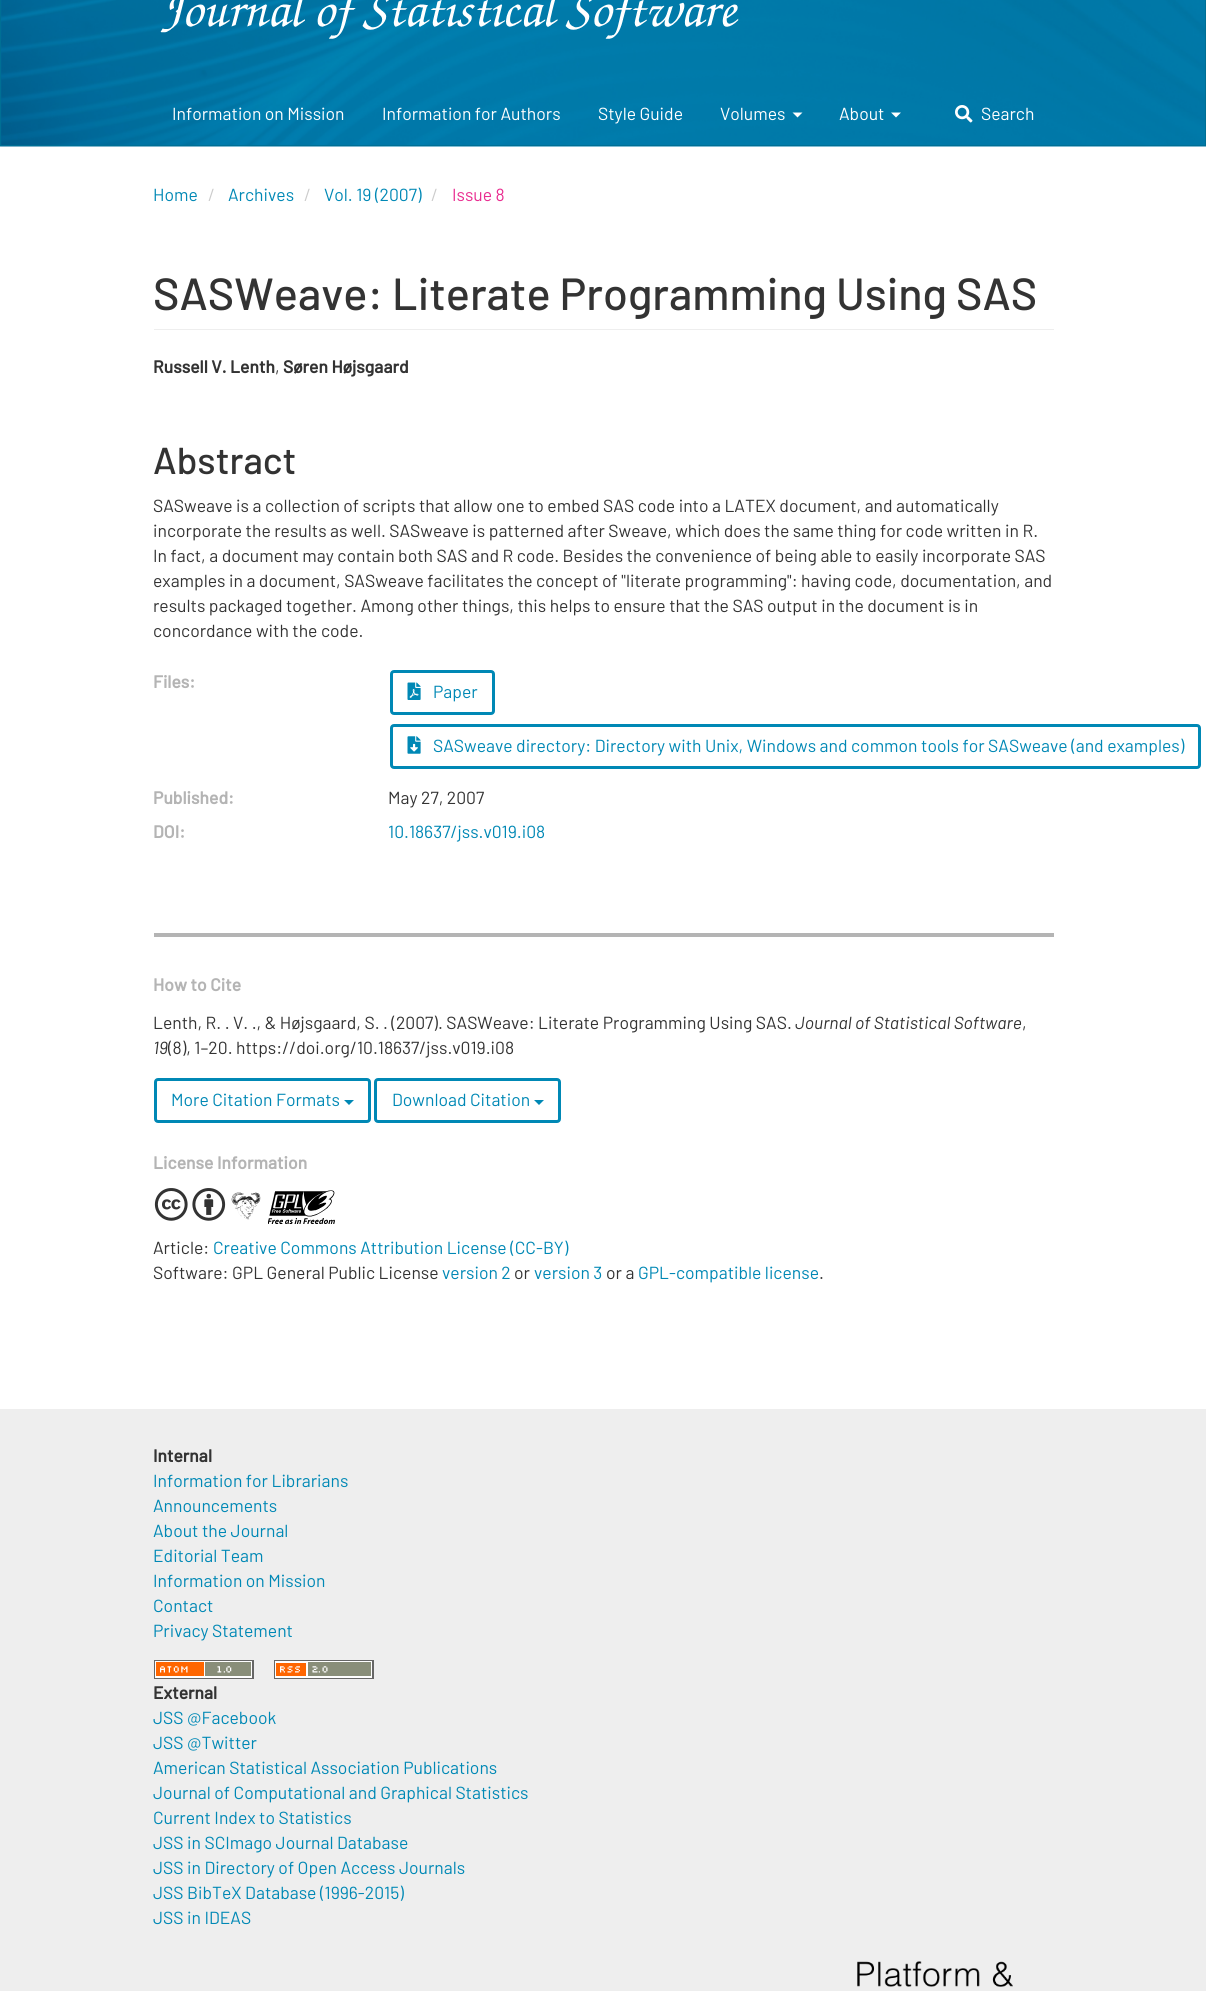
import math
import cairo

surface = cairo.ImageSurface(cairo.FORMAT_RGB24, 1206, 1991)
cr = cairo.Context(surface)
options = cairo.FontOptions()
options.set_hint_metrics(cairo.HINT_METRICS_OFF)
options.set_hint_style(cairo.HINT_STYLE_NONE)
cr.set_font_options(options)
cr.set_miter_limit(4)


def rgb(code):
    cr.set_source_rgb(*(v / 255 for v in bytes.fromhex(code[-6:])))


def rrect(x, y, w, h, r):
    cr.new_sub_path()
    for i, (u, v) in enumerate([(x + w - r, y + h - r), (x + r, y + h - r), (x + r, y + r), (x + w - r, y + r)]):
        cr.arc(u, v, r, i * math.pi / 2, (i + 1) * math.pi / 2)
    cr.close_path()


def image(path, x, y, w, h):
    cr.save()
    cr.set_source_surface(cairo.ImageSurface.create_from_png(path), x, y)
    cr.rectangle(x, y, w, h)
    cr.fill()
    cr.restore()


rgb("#ffffff")
cr.paint()
image("img/1.png", 0, 0, 1206, 147)
cr.rectangle(0.5, -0.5, 1205, 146)
rgb("#006f94")
cr.set_line_width(1)
cr.stroke()
image("img/2.png", 160, 0, 579, 39)
rgb("#ffffff")
cr.new_path()
cr.move_to(792.5, 112.5)
cr.line_to(802.5, 112.5)
cr.line_to(797.5, 117.5)
cr.close_path()
cr.fill()
cr.new_path()
cr.move_to(891, 112.5)
cr.line_to(901, 112.5)
cr.line_to(896, 117.5)
cr.close_path()
cr.fill()
image("img/3.png", 955, 105, 18, 18)
rgb("#eeeeee")
cr.rectangle(154, 329, 900, 1)
cr.fill()
rrect(391.5, 671.5, 102, 42, 2.5)
rgb("#0088b5")
cr.set_line_width(3)
cr.stroke()
image("img/4.png", 407, 682, 14, 18)
rrect(391.5, 725.5, 808, 42, 2.5)
cr.stroke()
image("img/5.png", 407, 736, 14, 18)
rgb("#b4b4b4")
cr.rectangle(154, 933, 900, 4)
cr.fill()
rrect(155.5, 1079.5, 214, 42, 2.5)
rgb("#0088b5")
cr.stroke()
cr.new_path()
cr.move_to(344, 1100)
cr.line_to(354, 1100)
cr.line_to(349, 1105)
cr.close_path()
cr.fill()
rrect(375.5, 1079.5, 184, 42, 2.5)
cr.stroke()
cr.new_path()
cr.move_to(534, 1100)
cr.line_to(544, 1100)
cr.line_to(539, 1105)
cr.close_path()
cr.fill()
image("img/6.png", 154, 1188, 34, 33)
image("img/7.png", 192, 1188, 34, 33)
image("img/8.png", 231, 1192, 30, 28)
image("img/9.png", 268, 1190, 67, 34)
rgb("#eeeeee")
cr.rectangle(0, 1409, 1206, 582)
cr.fill()
image("img/10.png", 154, 1660, 100, 19)
image("img/11.png", 274, 1660, 100, 19)
image("img/12.png", 857, 1961, 156, 26)
cr.select_font_face("Barlow")
cr.set_font_size(17.5)
rgb("#ffffff")
for x, y, s in [
    (172, 120, "Information on Mission"),
    (382, 120, "Information for Authors"),
    (598, 120, "Style Guide"),
    (720, 120, "Volumes"),
    (839, 120, "About"),
    (981, 120, "Search"),
]:
    cr.move_to(x, y)
    cr.show_text(s)
rgb("#0088b5")
cr.move_to(153, 201)
cr.show_text("Home")
rgb("#cccccc")
cr.move_to(208, 201)
cr.show_text("/")
rgb("#0088b5")
cr.move_to(228, 201)
cr.show_text("Archives")
rgb("#cccccc")
cr.move_to(304, 201)
cr.show_text("/")
rgb("#0088b5")
cr.move_to(324, 201)
cr.show_text("Vol. 19 (2007)")
rgb("#cccccc")
cr.move_to(431, 201)
cr.show_text("/")
rgb("#e92c90")
cr.move_to(452, 201)
cr.show_text("Issue 8")
cr.select_font_face("Barlow Medium")
cr.set_font_size(45)
rgb("#333333")
cr.move_to(153, 310)
cr.show_text("SASWeave: Literate Programming Using SAS")
cr.select_font_face("Barlow", cairo.FONT_SLANT_NORMAL, cairo.FONT_WEIGHT_BOLD)
cr.set_font_size(17.5)
cr.move_to(153, 373)
cr.show_text("Russell V. Lenth")
cr.select_font_face("Barlow")
cr.move_to(275, 373)
cr.show_text(",")
cr.select_font_face("Barlow", cairo.FONT_SLANT_NORMAL, cairo.FONT_WEIGHT_BOLD)
cr.move_to(283, 373)
cr.show_text("Søren Højsgaard")
cr.select_font_face("Barlow Medium")
cr.set_font_size(37.5)
cr.move_to(153, 474)
cr.show_text("Abstract")
cr.select_font_face("Barlow")
cr.set_font_size(17.5)
for x, y, s in [
    (153, 512, "SASweave is a collection of scripts that allow one to embed SAS code into a LATEX document, and automatically"),
    (153, 537, "incorporate the results as well. SASweave is patterned after Sweave, which does the same thing for code written in R."),
    (153, 562, "In fact, a document may contain both SAS and R code. Besides the convenience of being able to easily incorporate SAS"),
    (153, 587, "examples in a document, SASweave facilitates the concept of \"literate programming\": having code, documentation, and"),
    (153, 612, "results packaged together. Among other things, this helps to ensure that the SAS output in the document is in"),
    (153, 637, "concordance with the code."),
]:
    cr.move_to(x, y)
    cr.show_text(s)
cr.select_font_face("Barlow", cairo.FONT_SLANT_NORMAL, cairo.FONT_WEIGHT_BOLD)
rgb("#b4b4b4")
cr.move_to(153, 688)
cr.show_text("Files:")
cr.select_font_face("Barlow")
rgb("#0088b5")
cr.move_to(433, 698)
cr.show_text("Paper")
cr.move_to(433, 752)
cr.show_text("SASweave directory: Directory with Unix, Windows and common tools for SASweave (and examples)")
cr.select_font_face("Barlow", cairo.FONT_SLANT_NORMAL, cairo.FONT_WEIGHT_BOLD)
rgb("#b4b4b4")
cr.move_to(153, 804)
cr.show_text("Published:")
cr.select_font_face("Barlow")
rgb("#333333")
cr.move_to(388, 804)
cr.show_text("May 27, 2007")
cr.select_font_face("Barlow", cairo.FONT_SLANT_NORMAL, cairo.FONT_WEIGHT_BOLD)
rgb("#b4b4b4")
cr.move_to(153, 838)
cr.show_text("DOI:")
cr.select_font_face("Barlow")
rgb("#0088b5")
cr.move_to(388, 838)
cr.show_text("10.18637/jss.v019.i08")
cr.select_font_face("Barlow", cairo.FONT_SLANT_NORMAL, cairo.FONT_WEIGHT_BOLD)
rgb("#b4b4b4")
cr.move_to(153, 991)
cr.show_text("How to Cite")
cr.select_font_face("Barlow")
rgb("#333333")
cr.move_to(153, 1029)
cr.show_text("Lenth, R. . V. ., & Højsgaard, S. . (2007). SASWeave: Literate Programming Using SAS.")
cr.select_font_face("Barlow", cairo.FONT_SLANT_ITALIC)
cr.move_to(795, 1029)
cr.show_text("Journal of Statistical Software")
cr.select_font_face("Barlow")
cr.move_to(1022, 1029)
cr.show_text(",")
cr.select_font_face("Barlow", cairo.FONT_SLANT_ITALIC)
cr.move_to(153, 1054)
cr.show_text("19")
cr.select_font_face("Barlow")
cr.move_to(168, 1054)
cr.show_text("(8), 1–20. https://doi.org/10.18637/jss.v019.i08")
rgb("#0088b5")
cr.move_to(171, 1106)
cr.show_text("More Citation Formats")
cr.move_to(392, 1106)
cr.show_text("Download Citation")
cr.select_font_face("Barlow", cairo.FONT_SLANT_NORMAL, cairo.FONT_WEIGHT_BOLD)
rgb("#b4b4b4")
cr.move_to(153, 1169)
cr.show_text("License Information")
cr.select_font_face("Barlow")
rgb("#333333")
cr.move_to(153, 1254)
cr.show_text("Article:")
rgb("#0088b5")
cr.move_to(213, 1254)
cr.show_text("Creative Commons Attribution License (CC-BY)")
rgb("#333333")
cr.move_to(153, 1279)
cr.show_text("Software: GPL General Public License")
rgb("#0088b5")
cr.move_to(442, 1279)
cr.show_text("version 2")
rgb("#333333")
cr.move_to(514, 1279)
cr.show_text("or")
rgb("#0088b5")
cr.move_to(534, 1279)
cr.show_text("version 3")
rgb("#333333")
cr.move_to(606, 1279)
cr.show_text("or a")
rgb("#0088b5")
cr.move_to(638, 1279)
cr.show_text("GPL-compatible license")
rgb("#333333")
cr.move_to(819, 1279)
cr.show_text(".")
cr.select_font_face("Barlow", cairo.FONT_SLANT_NORMAL, cairo.FONT_WEIGHT_BOLD)
cr.move_to(153, 1462)
cr.show_text("Internal")
cr.select_font_face("Barlow")
rgb("#0088b5")
for x, y, s in [
    (153, 1487, "Information for Librarians"),
    (153, 1512, "Announcements"),
    (153, 1537, "About the Journal"),
    (153, 1562, "Editorial Team"),
    (153, 1587, "Information on Mission"),
    (153, 1612, "Contact"),
    (153, 1637, "Privacy Statement"),
]:
    cr.move_to(x, y)
    cr.show_text(s)
cr.select_font_face("Barlow", cairo.FONT_SLANT_NORMAL, cairo.FONT_WEIGHT_BOLD)
rgb("#333333")
cr.move_to(153, 1699)
cr.show_text("External")
cr.select_font_face("Barlow")
rgb("#0088b5")
for x, y, s in [
    (153, 1724, "JSS @Facebook"),
    (153, 1749, "JSS @Twitter"),
    (153, 1774, "American Statistical Association Publications"),
    (153, 1799, "Journal of Computational and Graphical Statistics"),
    (153, 1824, "Current Index to Statistics"),
    (153, 1849, "JSS in SCImago Journal Database"),
    (153, 1874, "JSS in Directory of Open Access Journals"),
    (153, 1899, "JSS BibTeX Database (1996-2015)"),
    (153, 1924, "JSS in IDEAS"),
]:
    cr.move_to(x, y)
    cr.show_text(s)
surface.write_to_png("page.png")
